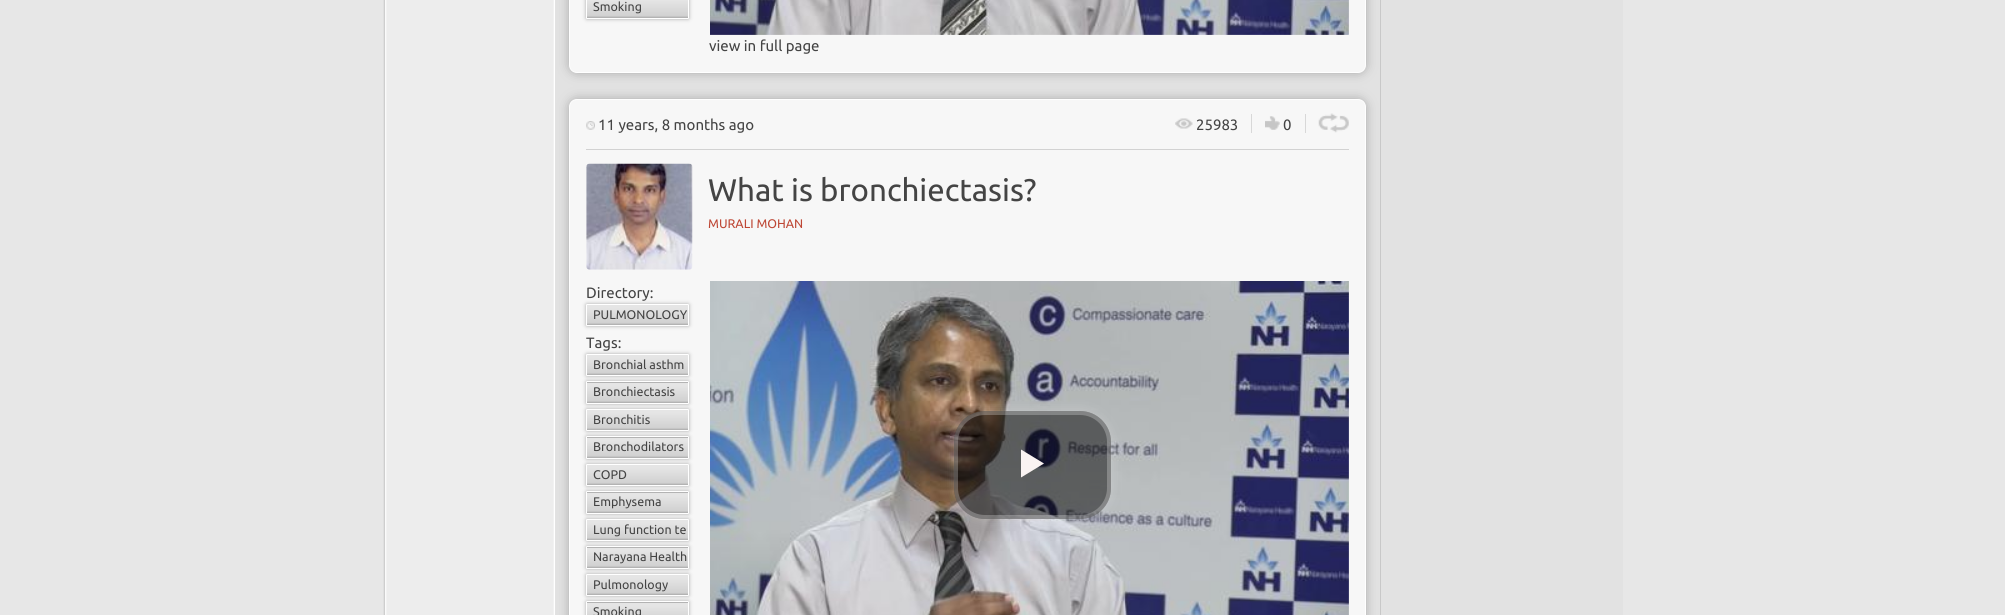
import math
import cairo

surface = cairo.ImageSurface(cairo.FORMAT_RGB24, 2005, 615)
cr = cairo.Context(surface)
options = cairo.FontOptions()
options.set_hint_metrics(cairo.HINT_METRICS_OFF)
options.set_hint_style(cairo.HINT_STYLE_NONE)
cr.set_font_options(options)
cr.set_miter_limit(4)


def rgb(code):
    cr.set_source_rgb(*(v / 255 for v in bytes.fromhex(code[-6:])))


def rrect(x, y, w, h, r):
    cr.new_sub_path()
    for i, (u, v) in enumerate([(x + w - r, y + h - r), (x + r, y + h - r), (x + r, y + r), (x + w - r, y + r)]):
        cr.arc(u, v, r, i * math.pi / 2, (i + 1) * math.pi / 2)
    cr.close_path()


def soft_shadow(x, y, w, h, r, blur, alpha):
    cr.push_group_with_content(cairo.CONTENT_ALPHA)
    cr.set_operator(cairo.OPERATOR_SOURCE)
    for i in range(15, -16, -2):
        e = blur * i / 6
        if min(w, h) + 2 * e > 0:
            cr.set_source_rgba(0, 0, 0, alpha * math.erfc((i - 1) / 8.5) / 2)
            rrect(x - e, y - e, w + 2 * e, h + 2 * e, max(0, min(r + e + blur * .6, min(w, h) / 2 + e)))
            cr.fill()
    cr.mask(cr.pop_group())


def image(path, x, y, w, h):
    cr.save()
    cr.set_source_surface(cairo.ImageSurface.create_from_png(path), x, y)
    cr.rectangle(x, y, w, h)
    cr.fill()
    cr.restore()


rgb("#e7e7e7")
cr.paint()
image("img/1.png", 383, 0, 172, 615)
rgb("#e2e2e2")
cr.rectangle(555, 0, 1068, 615)
cr.fill()
rgb("#c8c8c8")
cr.rectangle(1380, 0, 1, 615)
cr.fill()
rgb("#aaaaaa")
soft_shadow(569, -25, 797, 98, 8, 5.5, 1)
rgb("#f7f7f7")
rrect(569.5, -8.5, 796, 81, 7.5)
cr.fill_preserve()
rgb("#ffffff")
cr.set_line_width(1)
cr.stroke()
rgb("#aaaaaa")
soft_shadow(586, -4, 103, 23, 1, 2, 1)
gradient = cairo.LinearGradient(638, -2.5, 638, 18)
gradient.add_color_stop_rgba(0.13, 0.898, 0.898, 0.898, 1)
gradient.add_color_stop_rgba(0.89, 0.82, 0.82, 0.82, 1)
gradient.add_color_stop_rgba(1, 0.667, 0.667, 0.667, 1)
cr.set_source(gradient)
cr.rectangle(587, 0, 101, 18)
cr.fill()
rrect(586.5, -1.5, 102, 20, 0.5)
rgb("#ffffff")
cr.stroke()
image("img/2.png", 710, 0, 639, 35)
image("img/3.png", 710, 0, 639, 35)
rgb("#aaaaaa")
soft_shadow(569, 99, 797, 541, 8, 5.5, 1)
rgb("#f7f7f7")
rrect(569.5, 99.5, 796, 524, 7.5)
cr.fill_preserve()
rgb("#ffffff")
cr.stroke()
image("img/4.png", 586, 121, 9, 9)
image("img/5.png", 1175, 118, 18, 11)
rgb("#d8d8d8")
cr.rectangle(1251, 114, 1, 19)
cr.fill()
image("img/6.png", 1265, 116, 15, 14)
cr.rectangle(1305, 114, 1, 19)
cr.fill()
image("img/7.png", 1318, 113, 31, 20)
rgb("#d2d2d2")
cr.rectangle(586, 149, 763, 1)
cr.fill()
image("img/8.png", 586, 163, 107, 107)
rgb("#aaaaaa")
soft_shadow(586, 304, 103, 22, 1, 2, 1)
gradient = cairo.LinearGradient(638, 305, 638, 325)
gradient.add_color_stop_rgba(0.13, 0.898, 0.898, 0.898, 1)
gradient.add_color_stop_rgba(0.89, 0.82, 0.82, 0.82, 1)
gradient.add_color_stop_rgba(1, 0.667, 0.667, 0.667, 1)
cr.set_source(gradient)
cr.rectangle(587, 305, 101, 20)
cr.fill()
rrect(586.5, 304.5, 102, 21, 0.5)
rgb("#ffffff")
cr.stroke()
rgb("#aaaaaa")
soft_shadow(586, 354, 103, 22, 1, 2, 1)
gradient = cairo.LinearGradient(638, 355, 638, 375)
gradient.add_color_stop_rgba(0.13, 0.898, 0.898, 0.898, 1)
gradient.add_color_stop_rgba(0.89, 0.82, 0.82, 0.82, 1)
gradient.add_color_stop_rgba(1, 0.667, 0.667, 0.667, 1)
cr.set_source(gradient)
cr.rectangle(587, 355, 101, 20)
cr.fill()
rrect(586.5, 354.5, 102, 21, 0.5)
rgb("#ffffff")
cr.stroke()
rgb("#aaaaaa")
soft_shadow(586, 381, 103, 23, 1, 2, 1)
gradient = cairo.LinearGradient(638, 363, 638, 383)
gradient.add_color_stop_rgba(0.13, 0.898, 0.898, 0.898, 1)
gradient.add_color_stop_rgba(0.89, 0.82, 0.82, 0.82, 1)
gradient.add_color_stop_rgba(1, 0.667, 0.667, 0.667, 1)
cr.set_source(gradient)
cr.new_path()
cr.move_to(587, 381)
cr.line_to(688, 381)
cr.curve_to(688.5, 381, 689, 381.5, 689, 382)
cr.line_to(689, 383)
cr.line_to(586, 383)
cr.line_to(586, 382)
cr.curve_to(586, 381.5, 586.5, 381, 587, 381)
cr.close_path()
cr.fill()
gradient = cairo.LinearGradient(638, 383, 638, 403)
gradient.add_color_stop_rgba(0.13, 0.898, 0.898, 0.898, 1)
gradient.add_color_stop_rgba(0.89, 0.82, 0.82, 0.82, 1)
gradient.add_color_stop_rgba(1, 0.667, 0.667, 0.667, 1)
cr.set_source(gradient)
cr.rectangle(587, 383, 101, 20)
cr.fill()
rrect(586.5, 381.5, 102, 22, 0.5)
rgb("#ffffff")
cr.stroke()
rgb("#aaaaaa")
soft_shadow(586, 409, 103, 22, 1, 2, 1)
gradient = cairo.LinearGradient(638, 410, 638, 430)
gradient.add_color_stop_rgba(0.13, 0.898, 0.898, 0.898, 1)
gradient.add_color_stop_rgba(0.89, 0.82, 0.82, 0.82, 1)
gradient.add_color_stop_rgba(1, 0.667, 0.667, 0.667, 1)
cr.set_source(gradient)
cr.rectangle(587, 410, 101, 20)
cr.fill()
rrect(586.5, 409.5, 102, 21, 0.5)
rgb("#ffffff")
cr.stroke()
rgb("#aaaaaa")
soft_shadow(586, 436, 103, 23, 1, 2, 1)
gradient = cairo.LinearGradient(638, 418, 638, 438)
gradient.add_color_stop_rgba(0.13, 0.898, 0.898, 0.898, 1)
gradient.add_color_stop_rgba(0.89, 0.82, 0.82, 0.82, 1)
gradient.add_color_stop_rgba(1, 0.667, 0.667, 0.667, 1)
cr.set_source(gradient)
cr.new_path()
cr.move_to(587, 436)
cr.line_to(688, 436)
cr.curve_to(688.5, 436, 689, 436.5, 689, 437)
cr.line_to(689, 438)
cr.line_to(586, 438)
cr.line_to(586, 437)
cr.curve_to(586, 436.5, 586.5, 436, 587, 436)
cr.close_path()
cr.fill()
gradient = cairo.LinearGradient(638, 438, 638, 458)
gradient.add_color_stop_rgba(0.13, 0.898, 0.898, 0.898, 1)
gradient.add_color_stop_rgba(0.89, 0.82, 0.82, 0.82, 1)
gradient.add_color_stop_rgba(1, 0.667, 0.667, 0.667, 1)
cr.set_source(gradient)
cr.rectangle(587, 438, 101, 20)
cr.fill()
rrect(586.5, 436.5, 102, 22, 0.5)
rgb("#ffffff")
cr.stroke()
rgb("#aaaaaa")
soft_shadow(586, 464, 103, 22, 1, 2, 1)
gradient = cairo.LinearGradient(638, 465, 638, 485)
gradient.add_color_stop_rgba(0.13, 0.898, 0.898, 0.898, 1)
gradient.add_color_stop_rgba(0.89, 0.82, 0.82, 0.82, 1)
gradient.add_color_stop_rgba(1, 0.667, 0.667, 0.667, 1)
cr.set_source(gradient)
cr.rectangle(587, 465, 101, 20)
cr.fill()
rrect(586.5, 464.5, 102, 21, 0.5)
rgb("#ffffff")
cr.stroke()
rgb("#aaaaaa")
soft_shadow(586, 491, 103, 23, 1, 2, 1)
gradient = cairo.LinearGradient(638, 473, 638, 493)
gradient.add_color_stop_rgba(0.13, 0.898, 0.898, 0.898, 1)
gradient.add_color_stop_rgba(0.89, 0.82, 0.82, 0.82, 1)
gradient.add_color_stop_rgba(1, 0.667, 0.667, 0.667, 1)
cr.set_source(gradient)
cr.new_path()
cr.move_to(587, 491)
cr.line_to(688, 491)
cr.curve_to(688.5, 491, 689, 491.5, 689, 492)
cr.line_to(689, 493)
cr.line_to(586, 493)
cr.line_to(586, 492)
cr.curve_to(586, 491.5, 586.5, 491, 587, 491)
cr.close_path()
cr.fill()
gradient = cairo.LinearGradient(638, 493, 638, 513)
gradient.add_color_stop_rgba(0.13, 0.898, 0.898, 0.898, 1)
gradient.add_color_stop_rgba(0.89, 0.82, 0.82, 0.82, 1)
gradient.add_color_stop_rgba(1, 0.667, 0.667, 0.667, 1)
cr.set_source(gradient)
cr.rectangle(587, 493, 101, 20)
cr.fill()
rrect(586.5, 491.5, 102, 22, 0.5)
rgb("#ffffff")
cr.stroke()
rgb("#aaaaaa")
soft_shadow(586, 519, 103, 22, 1, 2, 1)
gradient = cairo.LinearGradient(638, 520, 638, 540)
gradient.add_color_stop_rgba(0.13, 0.898, 0.898, 0.898, 1)
gradient.add_color_stop_rgba(0.89, 0.82, 0.82, 0.82, 1)
gradient.add_color_stop_rgba(1, 0.667, 0.667, 0.667, 1)
cr.set_source(gradient)
cr.rectangle(587, 520, 101, 20)
cr.fill()
rrect(586.5, 519.5, 102, 21, 0.5)
rgb("#ffffff")
cr.stroke()
rgb("#aaaaaa")
soft_shadow(586, 546, 103, 23, 1, 2, 1)
gradient = cairo.LinearGradient(638, 528, 638, 548)
gradient.add_color_stop_rgba(0.13, 0.898, 0.898, 0.898, 1)
gradient.add_color_stop_rgba(0.89, 0.82, 0.82, 0.82, 1)
gradient.add_color_stop_rgba(1, 0.667, 0.667, 0.667, 1)
cr.set_source(gradient)
cr.new_path()
cr.move_to(587, 546)
cr.line_to(688, 546)
cr.curve_to(688.5, 546, 689, 546.5, 689, 547)
cr.line_to(689, 548)
cr.line_to(586, 548)
cr.line_to(586, 547)
cr.curve_to(586, 546.5, 586.5, 546, 587, 546)
cr.close_path()
cr.fill()
gradient = cairo.LinearGradient(638, 548, 638, 568)
gradient.add_color_stop_rgba(0.13, 0.898, 0.898, 0.898, 1)
gradient.add_color_stop_rgba(0.89, 0.82, 0.82, 0.82, 1)
gradient.add_color_stop_rgba(1, 0.667, 0.667, 0.667, 1)
cr.set_source(gradient)
cr.rectangle(587, 548, 101, 20)
cr.fill()
rrect(586.5, 546.5, 102, 22, 0.5)
rgb("#ffffff")
cr.stroke()
rgb("#aaaaaa")
soft_shadow(586, 574, 103, 22, 1, 2, 1)
gradient = cairo.LinearGradient(638, 575, 638, 595)
gradient.add_color_stop_rgba(0.13, 0.898, 0.898, 0.898, 1)
gradient.add_color_stop_rgba(0.89, 0.82, 0.82, 0.82, 1)
gradient.add_color_stop_rgba(1, 0.667, 0.667, 0.667, 1)
cr.set_source(gradient)
cr.rectangle(587, 575, 101, 20)
cr.fill()
rrect(586.5, 574.5, 102, 21, 0.5)
rgb("#ffffff")
cr.stroke()
rgb("#aaaaaa")
soft_shadow(586, 601, 103, 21, 1, 2, 1)
gradient = cairo.LinearGradient(638, 583, 638, 603)
gradient.add_color_stop_rgba(0.13, 0.898, 0.898, 0.898, 1)
gradient.add_color_stop_rgba(0.89, 0.82, 0.82, 0.82, 1)
gradient.add_color_stop_rgba(1, 0.667, 0.667, 0.667, 1)
cr.set_source(gradient)
cr.new_path()
cr.move_to(587, 601)
cr.line_to(688, 601)
cr.curve_to(688.5, 601, 689, 601.5, 689, 602)
cr.line_to(689, 603)
cr.line_to(586, 603)
cr.line_to(586, 602)
cr.curve_to(586, 601.5, 586.5, 601, 587, 601)
cr.close_path()
cr.fill()
gradient = cairo.LinearGradient(638, 603, 638, 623)
gradient.add_color_stop_rgba(0.13, 0.898, 0.898, 0.898, 1)
gradient.add_color_stop_rgba(0.89, 0.82, 0.82, 0.82, 1)
gradient.add_color_stop_rgba(1, 0.667, 0.667, 0.667, 1)
cr.set_source(gradient)
cr.rectangle(587, 603, 101, 12)
cr.fill()
rrect(586.5, 601.5, 102, 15, 0.5)
rgb("#ffffff")
cr.stroke()
image("img/9.png", 710, 281, 639, 334)
cr.save()
cr.set_fill_rule(cairo.FILL_RULE_EVEN_ODD)
cr.new_path()
cr.move_to(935, 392)
cr.line_to(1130, 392)
cr.line_to(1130, 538)
cr.line_to(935, 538)
cr.close_path()
cr.move_to(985, 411)
cr.line_to(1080, 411)
cr.curve_to(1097, 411, 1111, 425, 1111, 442)
cr.line_to(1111, 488)
cr.curve_to(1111, 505, 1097, 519, 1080, 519)
cr.line_to(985, 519)
cr.curve_to(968, 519, 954, 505, 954, 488)
cr.line_to(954, 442)
cr.curve_to(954, 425, 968, 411, 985, 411)
cr.close_path()
cr.clip()
rgb("#ffffff")
soft_shadow(954, 411, 157, 108, 31, 6, 0.25)
cr.restore()
cr.set_source_rgba(0, 0, 0, 0.5)
rrect(954, 411, 157, 108, 31)
cr.fill()
rrect(956, 413, 153, 104, 29)
cr.set_source_rgba(1, 1, 1, 0.25)
cr.set_line_width(4)
cr.stroke()
rgb("#faf3f2")
cr.new_path()
cr.move_to(1021, 449.5)
cr.line_to(1021, 477.5)
cr.line_to(1044, 463.5)
cr.close_path()
cr.fill()
image("img/10.png", 1348, 281, 1, 334)
cr.select_font_face("Ubuntu")
cr.set_font_size(12.5)
rgb("#444444")
cr.move_to(593, 11)
cr.show_text("Smoking")
cr.set_font_size(15)
for x, y, s in [
    (709, 51, "view in full page"),
    (598, 130, "11 years, 8 months ago"),
    (1196, 130, "25983"),
    (1283, 130, "0"),
]:
    cr.move_to(x, y)
    cr.show_text(s)
cr.set_font_size(31.25)
cr.move_to(708, 201)
cr.show_text("What is bronchiectasis?")
cr.set_font_size(12.5)
rgb("#be4735")
cr.move_to(708, 228)
cr.show_text("MURALI MOHAN")
cr.set_font_size(15)
rgb("#444444")
cr.move_to(586, 298)
cr.show_text("Directory:")
cr.set_font_size(12.5)
cr.move_to(593, 319)
cr.show_text("PULMONOLOGY")
cr.set_font_size(15)
cr.move_to(586, 348)
cr.show_text("Tags:")
cr.set_font_size(12.5)
for x, y, s in [
    (593, 369, "Bronchial asthm"),
    (593, 396, "Bronchiectasis"),
    (593, 424, "Bronchitis"),
    (593, 451, "Bronchodilators"),
    (593, 479, "COPD"),
    (593, 506, "Emphysema"),
    (593, 534, "Lung function te"),
    (593, 561, "Narayana Health"),
    (593, 589, "Pulmonology"),
    (593, 616, "Smoking"),
]:
    cr.move_to(x, y)
    cr.show_text(s)
surface.write_to_png("page.png")
